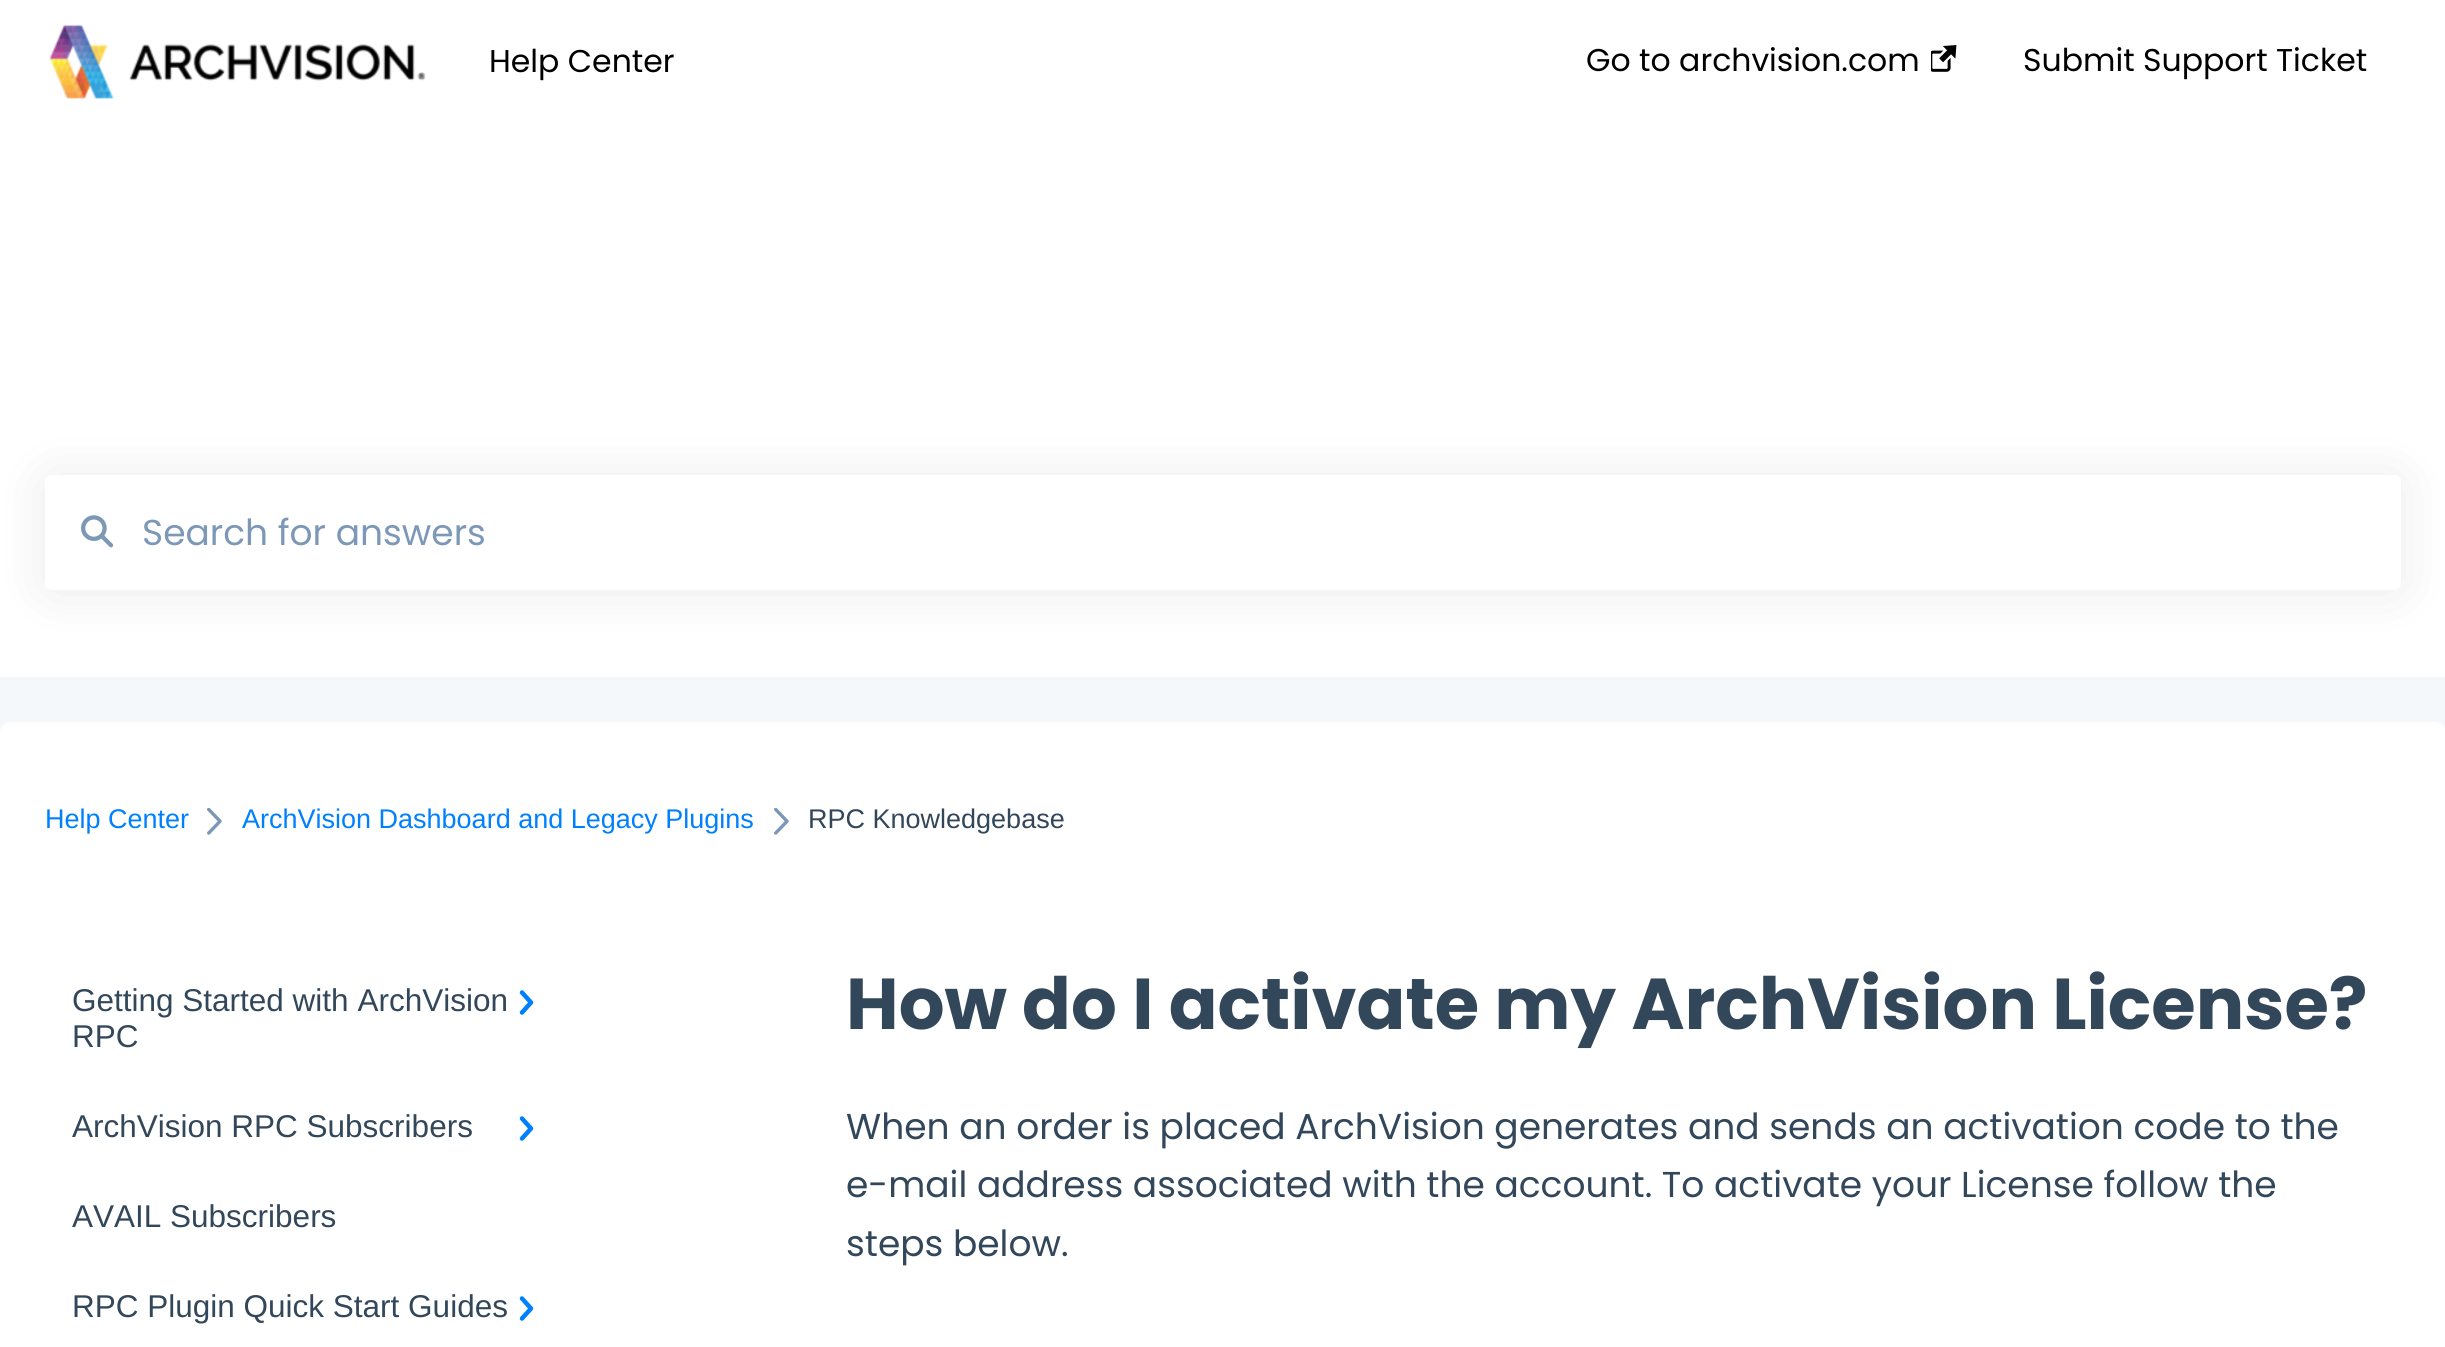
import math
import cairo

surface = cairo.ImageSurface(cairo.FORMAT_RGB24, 2445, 1347)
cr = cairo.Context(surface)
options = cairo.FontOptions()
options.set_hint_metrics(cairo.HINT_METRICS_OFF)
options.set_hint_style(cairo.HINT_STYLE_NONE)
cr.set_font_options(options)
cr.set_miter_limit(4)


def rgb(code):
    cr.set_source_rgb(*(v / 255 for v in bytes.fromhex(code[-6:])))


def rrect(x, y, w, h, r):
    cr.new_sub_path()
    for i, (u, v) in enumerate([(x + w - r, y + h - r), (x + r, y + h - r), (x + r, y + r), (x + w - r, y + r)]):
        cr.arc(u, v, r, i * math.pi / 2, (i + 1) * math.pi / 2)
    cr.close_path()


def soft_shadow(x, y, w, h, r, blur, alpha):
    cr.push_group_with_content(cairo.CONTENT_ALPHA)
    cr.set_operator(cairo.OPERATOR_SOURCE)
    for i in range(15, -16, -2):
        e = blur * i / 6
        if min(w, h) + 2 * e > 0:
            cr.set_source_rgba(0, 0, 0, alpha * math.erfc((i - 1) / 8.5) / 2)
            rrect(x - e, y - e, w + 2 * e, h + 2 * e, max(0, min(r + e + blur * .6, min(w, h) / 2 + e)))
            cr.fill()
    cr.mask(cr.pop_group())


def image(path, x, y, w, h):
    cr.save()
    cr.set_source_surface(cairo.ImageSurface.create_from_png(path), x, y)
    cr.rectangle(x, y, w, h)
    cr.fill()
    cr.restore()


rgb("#f5f8fa")
cr.paint()
rgb("#ffffff")
cr.rectangle(0, 0, 2445, 677)
cr.fill()
image("img/1.png", 49, 24, 377, 75)
image("img/2.png", 1931, 45, 26, 27)
rgb("#000000")
soft_shadow(45, 477, 2356, 115, 7, 27, 0.08)
rgb("#ffffff")
rrect(45, 475, 2356, 115, 7)
cr.fill()
image("img/3.png", 81, 515, 33, 33)
rrect(0, 722, 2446, 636, 11)
cr.fill()
image("img/4.png", 207, 808, 15, 27)
image("img/4.png", 774, 808, 15, 27)
cr.new_path()
cr.move_to(522, 992.5)
cr.line_to(531, 1002.5)
cr.line_to(522, 1012.5)
rgb("#0080ff")
cr.set_line_width(4.5)
cr.set_line_cap(cairo.LINE_CAP_ROUND)
cr.set_line_join(cairo.LINE_JOIN_ROUND)
cr.stroke()
cr.new_path()
cr.move_to(522, 1118.5)
cr.line_to(531, 1128.5)
cr.line_to(522, 1138.5)
cr.stroke()
cr.new_path()
cr.move_to(522, 1298.5)
cr.line_to(531, 1308.5)
cr.line_to(522, 1318.5)
cr.stroke()
cr.select_font_face("Poppins")
cr.set_font_size(31.5)
rgb("#000000")
for x, y, s in [
    (489, 72, "Help Center"),
    (1586, 71, "Go to archvision.com"),
    (2023, 71, "Submit Support Ticket"),
]:
    cr.move_to(x, y)
    cr.show_text(s)
cr.set_font_size(36)
rgb("#7c98b6")
cr.move_to(142, 545)
cr.show_text("Search for answers")
cr.select_font_face("Liberation Sans")
cr.set_font_size(27)
rgb("#0080ff")
cr.move_to(45, 828)
cr.show_text("Help Center")
cr.move_to(242, 828)
cr.show_text("ArchVision Dashboard and Legacy Plugins")
rgb("#33475b")
cr.move_to(808, 828)
cr.show_text("RPC Knowledgebase")
cr.set_font_size(31.5)
for x, y, s in [
    (72, 1011, "Getting Started with ArchVision"),
    (72, 1047, "RPC"),
    (72, 1137, "ArchVision RPC Subscribers"),
    (72, 1227, "AVAIL Subscribers"),
    (72, 1317, "RPC Plugin Quick Start Guides"),
]:
    cr.move_to(x, y)
    cr.show_text(s)
cr.select_font_face("Poppins", cairo.FONT_SLANT_NORMAL, cairo.FONT_WEIGHT_BOLD)
cr.set_font_size(72)
cr.move_to(846, 1029)
cr.show_text("How do I activate my ArchVision License?")
cr.select_font_face("Poppins")
cr.set_font_size(36)
for x, y, s in [
    (846, 1139, "When an order is placed ArchVision generates and sends an activation code to the"),
    (846, 1197, "e-mail address associated with the account. To activate your License follow the"),
    (846, 1256, "steps below."),
]:
    cr.move_to(x, y)
    cr.show_text(s)
surface.write_to_png("page.png")
